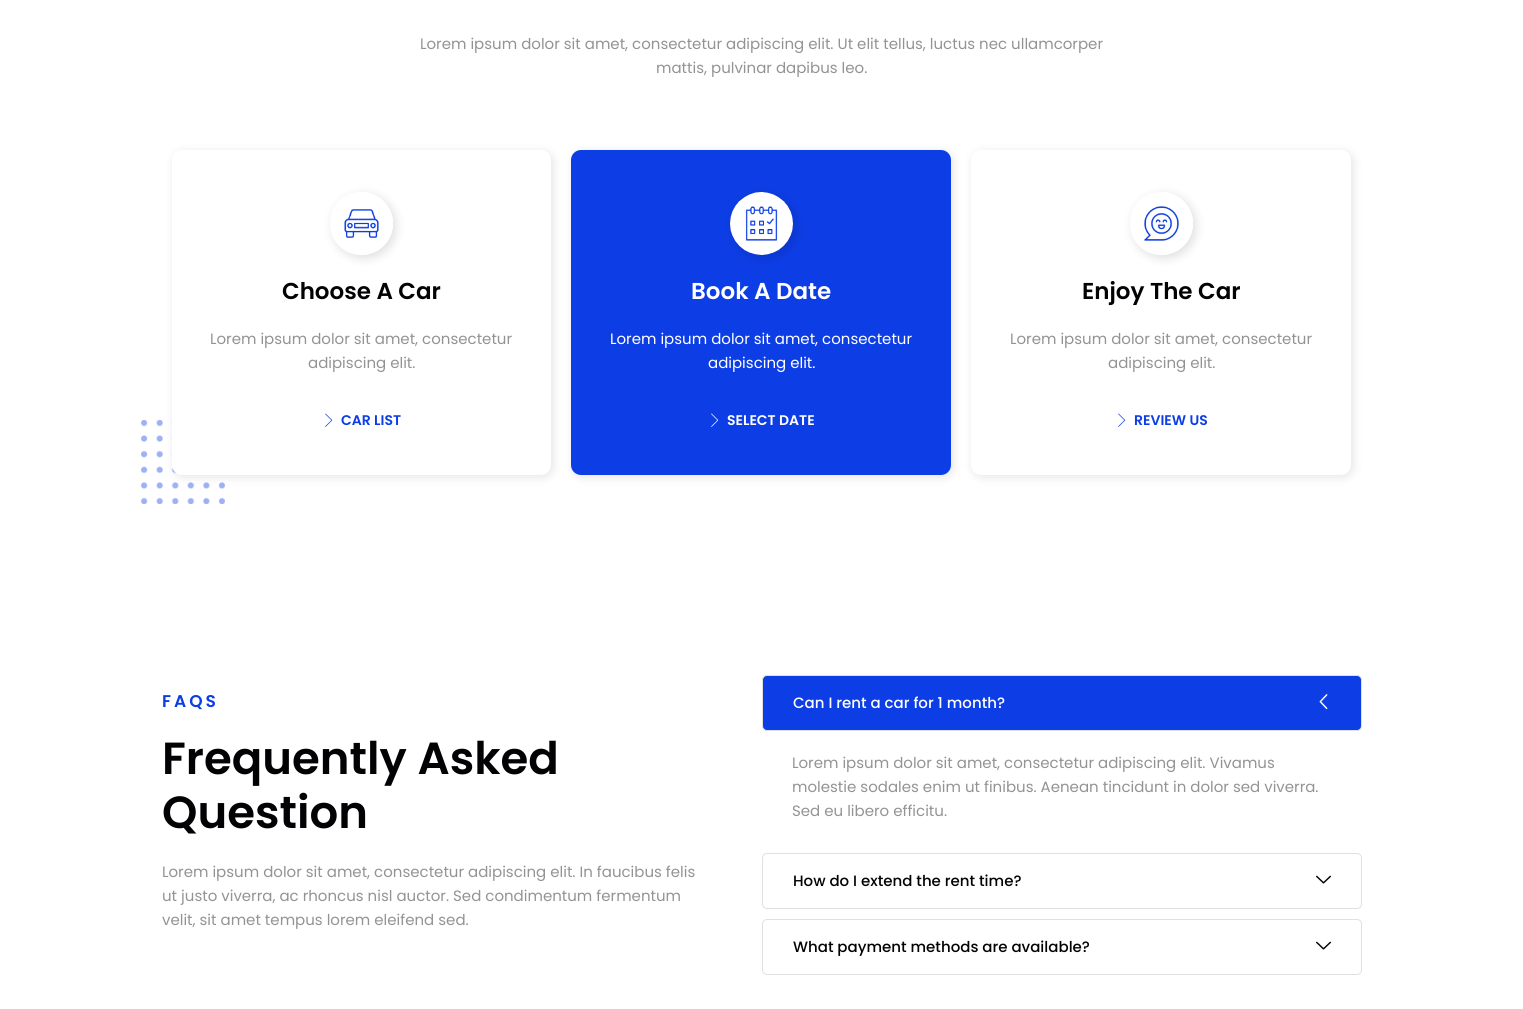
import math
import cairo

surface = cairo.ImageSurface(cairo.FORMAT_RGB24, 1523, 1009)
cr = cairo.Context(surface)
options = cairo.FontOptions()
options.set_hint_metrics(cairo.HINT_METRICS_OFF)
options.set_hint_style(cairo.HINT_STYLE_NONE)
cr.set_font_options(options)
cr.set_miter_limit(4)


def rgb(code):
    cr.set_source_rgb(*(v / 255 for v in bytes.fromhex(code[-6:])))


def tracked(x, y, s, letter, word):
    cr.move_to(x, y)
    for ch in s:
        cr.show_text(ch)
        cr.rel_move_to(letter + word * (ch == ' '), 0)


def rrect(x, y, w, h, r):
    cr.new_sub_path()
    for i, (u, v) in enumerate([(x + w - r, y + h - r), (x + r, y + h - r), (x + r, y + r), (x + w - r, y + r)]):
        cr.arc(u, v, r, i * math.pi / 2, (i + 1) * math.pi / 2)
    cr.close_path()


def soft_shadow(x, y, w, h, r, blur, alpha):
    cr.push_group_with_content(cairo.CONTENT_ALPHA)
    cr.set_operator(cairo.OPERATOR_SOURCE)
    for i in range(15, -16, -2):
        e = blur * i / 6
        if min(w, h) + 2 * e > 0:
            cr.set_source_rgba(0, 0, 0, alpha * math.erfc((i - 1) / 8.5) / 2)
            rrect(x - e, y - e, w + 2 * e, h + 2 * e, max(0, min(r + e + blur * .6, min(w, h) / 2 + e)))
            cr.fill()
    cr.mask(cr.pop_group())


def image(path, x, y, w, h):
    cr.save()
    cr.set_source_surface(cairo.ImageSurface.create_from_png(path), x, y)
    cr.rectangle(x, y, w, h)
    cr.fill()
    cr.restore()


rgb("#ffffff")
cr.paint()
image("img/6.png", 141, 420, 84, 84)
rgb("#000000")
soft_shadow(174, 152, 379, 325, 10, 5, 0.11)
rgb("#ffffff")
rrect(172, 150, 379, 325, 10)
cr.fill()
cr.save()
cr.set_fill_rule(cairo.FILL_RULE_EVEN_ODD)
cr.new_path()
cr.move_to(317, 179)
cr.line_to(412, 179)
cr.line_to(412, 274)
cr.line_to(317, 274)
cr.close_path()
cr.move_to(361.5, 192)
cr.curve_to(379, 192, 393, 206, 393, 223.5)
cr.curve_to(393, 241, 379, 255, 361.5, 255)
cr.curve_to(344, 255, 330, 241, 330, 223.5)
cr.curve_to(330, 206, 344, 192, 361.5, 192)
cr.close_path()
cr.clip()
rgb("#000000")
soft_shadow(333, 195, 63, 63, 31.5, 5, 0.13)
cr.restore()
image("img/1.png", 344, 209, 49, 46)
image("img/2.png", 325, 413, 8, 14)
rgb("#000000")
soft_shadow(573, 152, 380, 325, 10, 5, 0.11)
rgb("#0d3de5")
rrect(571, 150, 380, 325, 10)
cr.fill()
rgb("#000000")
soft_shadow(733, 195, 63, 63, 31.5, 5, 0.13)
image("img/3.png", 730, 192, 63, 63)
image("img/4.png", 711, 413, 8, 14)
soft_shadow(973, 152, 380, 325, 10, 5, 0.11)
rgb("#ffffff")
rrect(971, 150, 380, 325, 10)
cr.fill()
cr.save()
cr.set_fill_rule(cairo.FILL_RULE_EVEN_ODD)
cr.new_path()
cr.move_to(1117, 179)
cr.line_to(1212, 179)
cr.line_to(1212, 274)
cr.line_to(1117, 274)
cr.close_path()
cr.move_to(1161.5, 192)
cr.curve_to(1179, 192, 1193, 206, 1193, 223.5)
cr.curve_to(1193, 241, 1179, 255, 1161.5, 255)
cr.curve_to(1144, 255, 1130, 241, 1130, 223.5)
cr.curve_to(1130, 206, 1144, 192, 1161.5, 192)
cr.close_path()
cr.clip()
rgb("#000000")
soft_shadow(1133, 195, 63, 63, 31.5, 5, 0.13)
cr.restore()
image("img/5.png", 1144, 206, 49, 49)
image("img/2.png", 1118, 413, 8, 14)
rgb("#0d3de5")
rrect(762.5, 675.5, 599, 55, 4.5)
cr.fill_preserve()
rgb("#e0e0e0")
cr.set_line_width(1)
cr.stroke()
image("img/7.png", 1319, 694, 9, 16)
rrect(762.5, 853.5, 599, 55, 4.5)
cr.stroke()
image("img/8.png", 1316, 875, 15, 9)
rrect(762.5, 919.5, 599, 55, 4.5)
cr.stroke()
image("img/8.png", 1316, 941, 15, 9)
cr.select_font_face("Poppins")
cr.set_font_size(15)
rgb("#939393")
cr.move_to(420, 49)
cr.show_text("Lorem ipsum dolor sit amet, consectetur adipiscing elit. Ut elit tellus, luctus nec ullamcorper")
cr.move_to(656, 73)
cr.show_text("mattis, pulvinar dapibus leo.")
cr.select_font_face("Poppins SemiBold")
cr.set_font_size(23)
rgb("#020204")
cr.move_to(282, 299)
cr.show_text("Choose A Car")
cr.select_font_face("Poppins")
cr.set_font_size(15)
rgb("#939393")
cr.move_to(210, 344)
cr.show_text("Lorem ipsum dolor sit amet, consectetur")
cr.move_to(308, 368)
cr.show_text("adipiscing elit.")
cr.select_font_face("Poppins SemiBold")
cr.set_font_size(14)
rgb("#0d3de5")
cr.move_to(341, 425)
cr.show_text("CAR LIST")
cr.set_font_size(23)
rgb("#ffffff")
cr.move_to(691, 299)
cr.show_text("Book A Date")
cr.select_font_face("Poppins")
cr.set_font_size(15)
cr.move_to(610, 344)
cr.show_text("Lorem ipsum dolor sit amet, consectetur")
cr.move_to(708, 368)
cr.show_text("adipiscing elit.")
cr.select_font_face("Poppins SemiBold")
cr.set_font_size(14)
cr.move_to(727, 425)
cr.show_text("SELECT DATE")
cr.set_font_size(23)
rgb("#020204")
cr.move_to(1082, 299)
cr.show_text("Enjoy The Car")
cr.select_font_face("Poppins")
cr.set_font_size(15)
rgb("#939393")
cr.move_to(1010, 344)
cr.show_text("Lorem ipsum dolor sit amet, consectetur")
cr.move_to(1108, 368)
cr.show_text("adipiscing elit.")
cr.select_font_face("Poppins SemiBold")
cr.set_font_size(14)
rgb("#0d3de5")
cr.move_to(1134, 425)
cr.show_text("REVIEW US")
cr.set_font_size(17)
tracked(162, 707, "FAQS", 3, 0)
cr.set_font_size(45)
rgb("#020204")
cr.move_to(162, 774)
cr.show_text("Frequently Asked")
cr.move_to(162, 828)
cr.show_text("Question")
cr.select_font_face("Poppins")
cr.set_font_size(15)
rgb("#939393")
for x, y, s in [
    (162, 877, "Lorem ipsum dolor sit amet, consectetur adipiscing elit. In faucibus felis"),
    (162, 901, "ut justo viverra, ac rhoncus nisl auctor. Sed condimentum fermentum"),
    (162, 925, "velit, sit amet tempus lorem eleifend sed."),
]:
    cr.move_to(x, y)
    cr.show_text(s)
cr.select_font_face("Poppins Medium")
rgb("#ffffff")
cr.move_to(793, 708)
cr.show_text("Can I rent a car for 1 month?")
cr.select_font_face("Poppins")
rgb("#939393")
for x, y, s in [
    (792, 768, "Lorem ipsum dolor sit amet, consectetur adipiscing elit. Vivamus"),
    (792, 792, "molestie sodales enim ut finibus. Aenean tincidunt in dolor sed viverra."),
    (792, 816, "Sed eu libero efficitu."),
]:
    cr.move_to(x, y)
    cr.show_text(s)
cr.select_font_face("Poppins Medium")
rgb("#020204")
cr.move_to(793, 886)
cr.show_text("How do I extend the rent time?")
cr.move_to(793, 952)
cr.show_text("What payment methods are available?")
surface.write_to_png("page.png")
